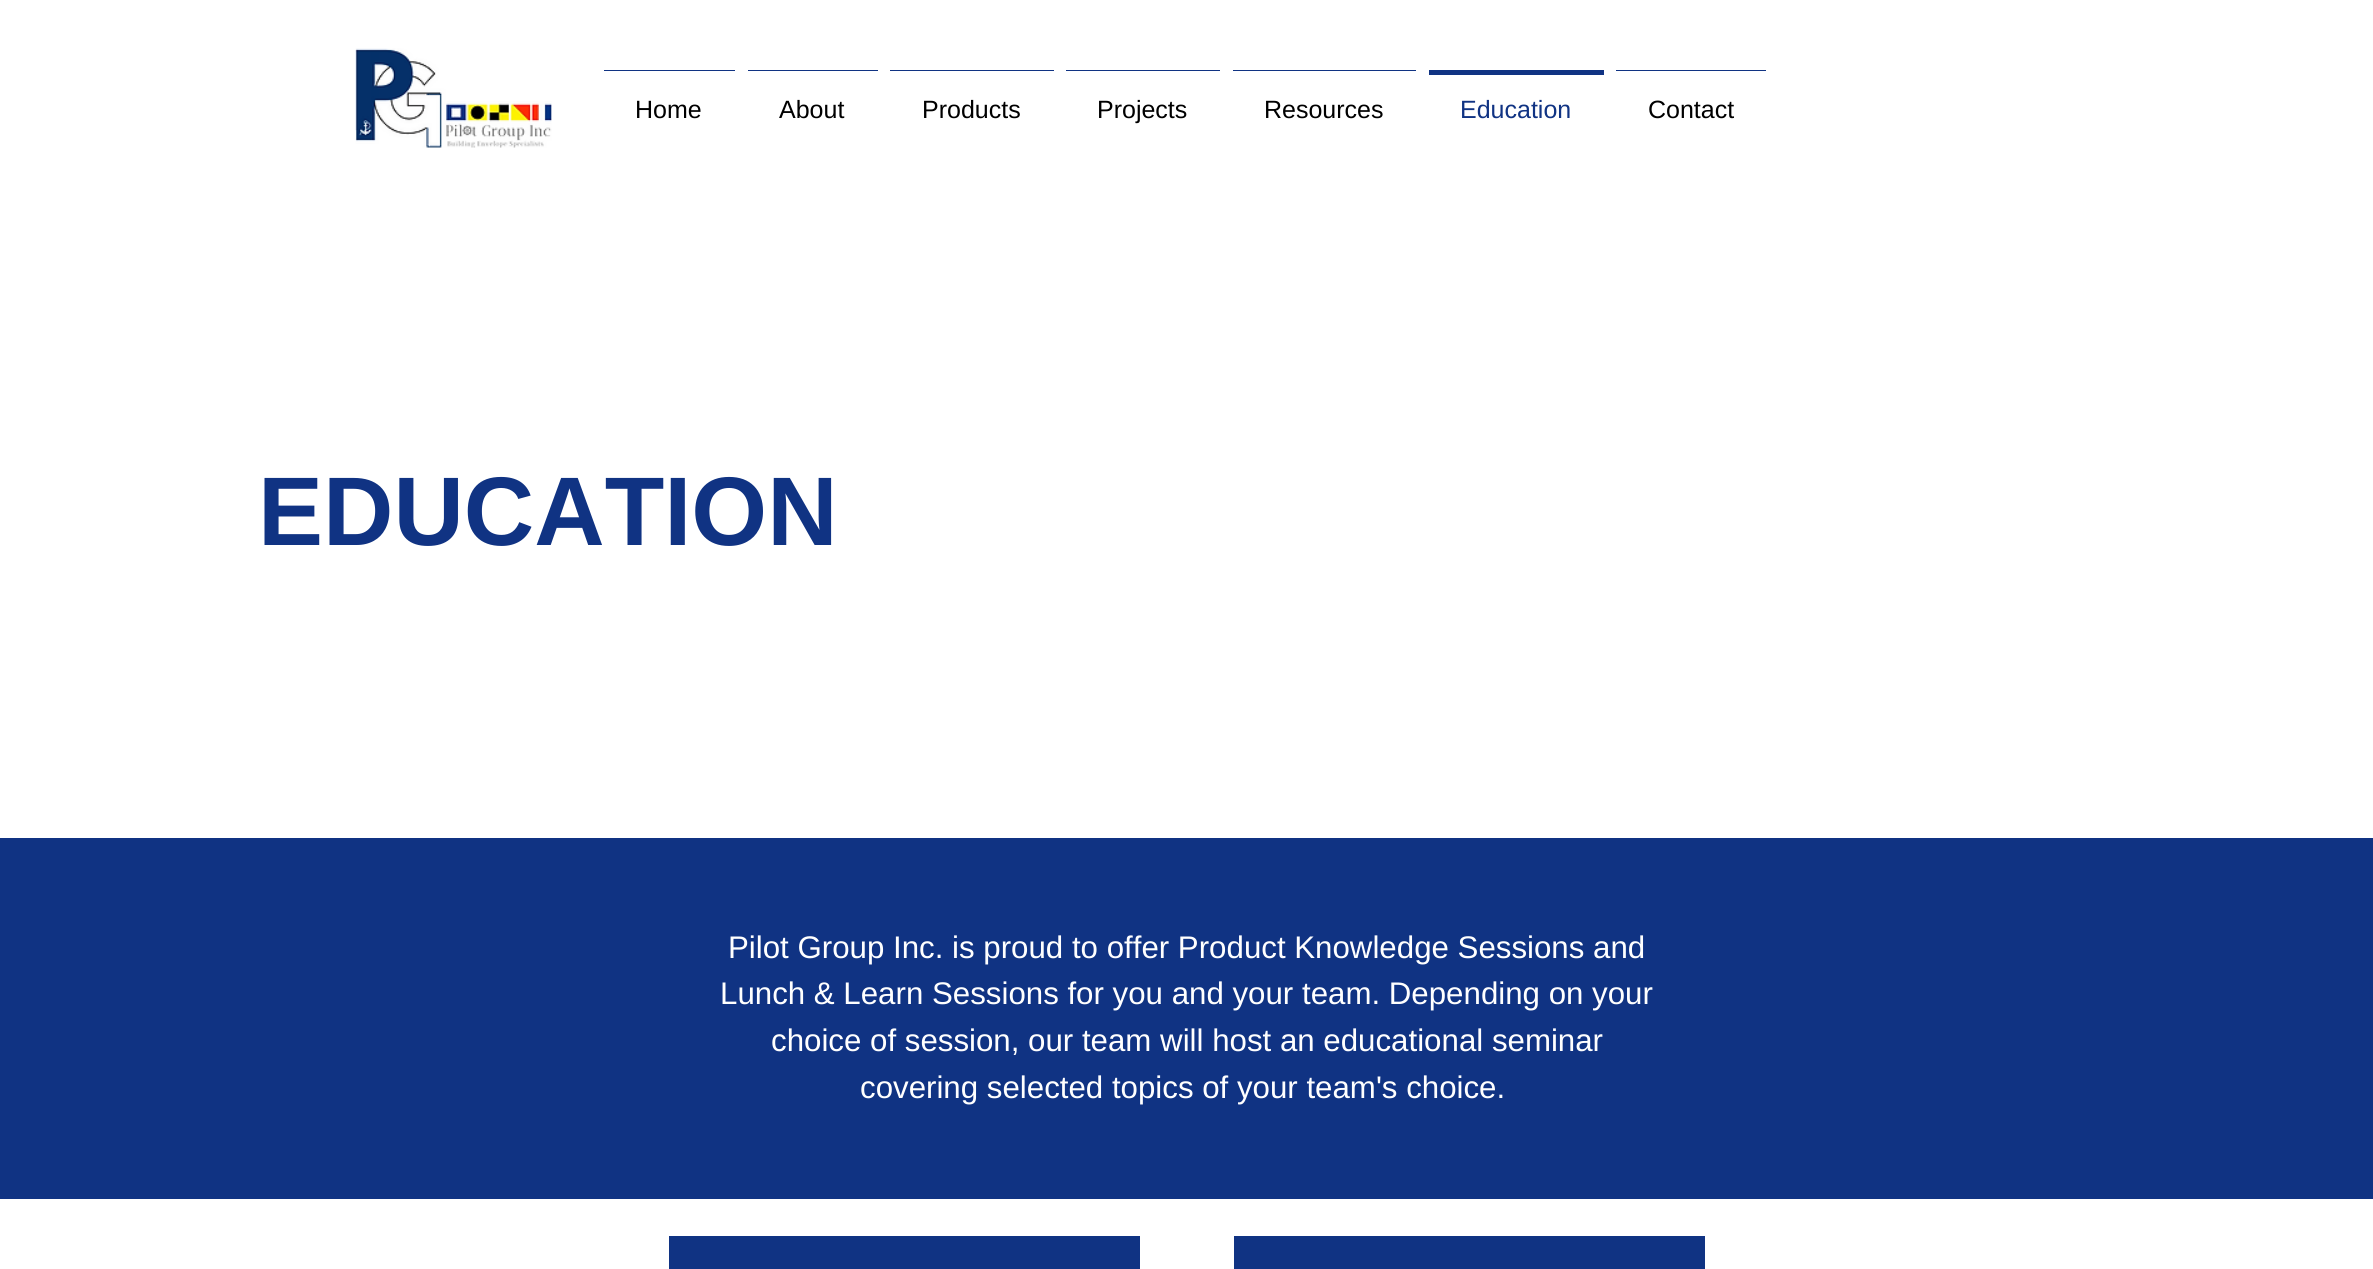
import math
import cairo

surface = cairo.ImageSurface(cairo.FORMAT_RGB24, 2373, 1269)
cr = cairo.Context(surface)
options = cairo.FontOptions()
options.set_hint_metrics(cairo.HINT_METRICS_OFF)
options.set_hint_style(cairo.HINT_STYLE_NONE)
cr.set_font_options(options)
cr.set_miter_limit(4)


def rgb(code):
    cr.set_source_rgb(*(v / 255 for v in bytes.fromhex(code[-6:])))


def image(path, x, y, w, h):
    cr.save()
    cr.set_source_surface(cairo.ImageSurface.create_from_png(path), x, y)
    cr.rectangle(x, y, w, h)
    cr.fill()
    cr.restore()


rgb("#ffffff")
cr.paint()
image("img/1.png", 355, 48, 197, 100)
for x, y, w, h, color in [
    (604, 70, 131, 1, "#103383"),
    (748, 70, 130, 1, "#103383"),
    (890, 70, 164, 1, "#103383"),
    (1066, 70, 154, 1, "#103383"),
    (1233, 70, 183, 1, "#103383"),
    (1429, 70, 175, 5, "#103383"),
    (1616, 70, 150, 1, "#103383"),
    (0, 838, 2373, 361, "#103383"),
    (669, 1236, 471, 33, "#103383"),
    (1234, 1236, 471, 33, "#103383"),
]:
    rgb(color)
    cr.rectangle(x, y, w, h)
    cr.fill()
cr.select_font_face("Liberation Sans")
cr.set_font_size(25)
rgb("#000000")
for x, y, s in [
    (635, 118, "Home"),
    (779, 118, "About"),
    (922, 118, "Products"),
    (1097, 118, "Projects"),
    (1264, 118, "Resources"),
]:
    cr.move_to(x, y)
    cr.show_text(s)
rgb("#103383")
cr.move_to(1460, 118)
cr.show_text("Education")
rgb("#000000")
cr.move_to(1648, 118)
cr.show_text("Contact")
cr.select_font_face("Liberation Sans", cairo.FONT_SLANT_NORMAL, cairo.FONT_WEIGHT_BOLD)
cr.set_font_size(97.5)
rgb("#103383")
cr.move_to(258, 545)
cr.show_text("EDUCATION")
cr.select_font_face("Liberation Sans")
cr.set_font_size(31.25)
rgb("#ffffff")
for x, y, s in [
    (728, 958, "Pilot Group Inc. is proud to offer Product Knowledge Sessions and"),
    (720, 1004, "Lunch & Learn Sessions for you and your team. Depending on your"),
    (771, 1051, "choice of session, our team will host an educational seminar"),
    (860, 1098, "covering selected topics of your team's choice."),
]:
    cr.move_to(x, y)
    cr.show_text(s)
surface.write_to_png("page.png")
